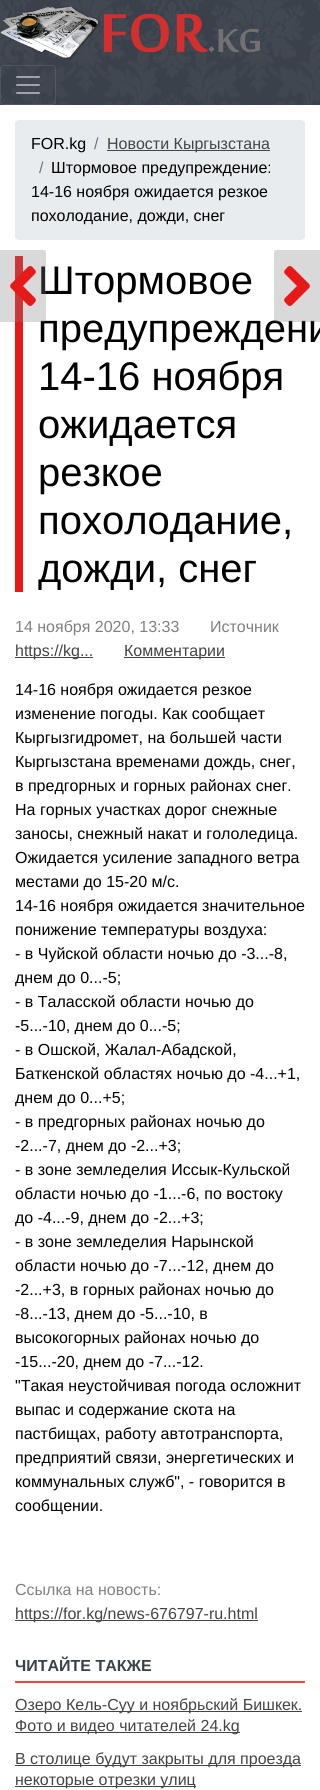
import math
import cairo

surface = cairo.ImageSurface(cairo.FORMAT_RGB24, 320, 1790)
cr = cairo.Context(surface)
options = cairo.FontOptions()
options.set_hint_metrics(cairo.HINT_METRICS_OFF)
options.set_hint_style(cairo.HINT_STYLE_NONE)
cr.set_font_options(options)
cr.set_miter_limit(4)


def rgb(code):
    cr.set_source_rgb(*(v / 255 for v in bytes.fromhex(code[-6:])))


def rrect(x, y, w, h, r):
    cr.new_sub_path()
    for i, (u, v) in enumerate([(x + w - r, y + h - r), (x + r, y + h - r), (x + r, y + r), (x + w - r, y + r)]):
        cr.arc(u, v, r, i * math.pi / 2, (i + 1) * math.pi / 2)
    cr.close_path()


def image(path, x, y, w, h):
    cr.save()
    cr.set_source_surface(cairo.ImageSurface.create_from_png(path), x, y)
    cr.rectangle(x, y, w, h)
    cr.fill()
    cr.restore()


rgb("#ffffff")
cr.paint()
image("img/1.png", 0, 0, 320, 105)
image("img/2.png", 0, 6, 260, 53)
rrect(0.5, 65.5, 55, 39, 3.5)
cr.set_source_rgba(1, 1, 1, 0.1)
cr.set_line_width(1)
cr.stroke()
image("img/3.png", 16, 76, 24, 18)
rgb("#e9ecef")
rrect(15, 120, 290, 120, 4)
cr.fill()
for x, y, w, h, color in [
    (107, 150, 163, 1, "#444444"),
    (15, 256, 8, 336, "#e71a1a"),
    (15, 657, 78, 1, "#444444"),
    (124, 657, 101, 1, "#444444"),
    (15, 1620, 243, 1, "#444444"),
    (15, 1681, 290, 2, "#f44336"),
    (15, 1711, 287, 1, "#444444"),
    (15, 1732, 225, 1, "#444444"),
    (15, 1765, 286, 1, "#444444"),
    (15, 1786, 181, 1, "#444444"),
]:
    rgb(color)
    cr.rectangle(x, y, w, h)
    cr.fill()
cr.select_font_face("Liberation Sans")
cr.set_font_size(16)
rgb("#000000")
cr.move_to(31, 149)
cr.show_text("FOR.kg")
rgb("#6c757d")
cr.move_to(94, 149)
cr.show_text("/")
rgb("#444444")
cr.move_to(107, 149)
cr.show_text("Новости Кыргызстана")
rgb("#6c757d")
cr.move_to(39, 173)
cr.show_text("/")
rgb("#000000")
for x, y, s in [
    (51, 173, "Штормовое предупреждение:"),
    (31, 197, "14-16 ноября ожидается резкое"),
    (31, 221, "похолодание, дожди, снег"),
]:
    cr.move_to(x, y)
    cr.show_text(s)
cr.set_font_size(40)
cr.move_to(38, 294)
cr.show_text("Штормовое")
cr.move_to(38, 342)
cr.show_text("предупреждени")
cr.set_source_rgba(0.502, 0.502, 0.502, 0.3)
cr.new_path()
cr.move_to(276, 250)
cr.line_to(320, 250)
cr.line_to(320, 322)
cr.line_to(276, 322)
cr.curve_to(275, 322, 274, 321, 274, 320)
cr.line_to(274, 252)
cr.curve_to(274, 251, 275, 250, 276, 250)
cr.close_path()
cr.fill()
image("img/5.png", 284, 266, 26, 40)
cr.new_path()
cr.move_to(0, 250)
cr.line_to(44, 250)
cr.curve_to(45, 250, 46, 251, 46, 252)
cr.line_to(46, 320)
cr.curve_to(46, 321, 45, 322, 44, 322)
cr.line_to(0, 322)
cr.close_path()
cr.fill()
image("img/4.png", 10, 266, 26, 40)
rgb("#000000")
for x, y, s in [
    (38, 390, "14-16 ноября"),
    (38, 438, "ожидается"),
    (38, 486, "резкое"),
    (38, 534, "похолодание,"),
    (38, 582, "дожди, снег"),
]:
    cr.move_to(x, y)
    cr.show_text(s)
cr.set_font_size(16)
rgb("#808080")
cr.move_to(15, 632)
cr.show_text("14 ноября 2020, 13:33")
cr.move_to(210, 632)
cr.show_text("Источник")
rgb("#444444")
cr.move_to(15, 656)
cr.show_text("https://kg...")
cr.move_to(124, 656)
cr.show_text("Комментарии")
rgb("#000000")
for x, y, s in [
    (15, 695, "14-16 ноября ожидается резкое"),
    (15, 719, "изменение погоды. Как сообщает"),
    (15, 743, "Кыргызгидромет, на большей части"),
    (15, 767, "Кыргызстана временами дождь, снег,"),
    (15, 791, "в предгорных и горных районах снег."),
    (15, 815, "На горных участках дорог снежные"),
    (15, 839, "заносы, снежный накат и гололедица."),
    (15, 863, "Ожидается усиление западного ветра"),
    (15, 887, "местами до 15-20 м/с."),
    (15, 911, "14-16 ноября ожидается значительное"),
    (15, 935, "понижение температуры воздуха:"),
    (15, 959, "- в Чуйской области ночью до -3...-8,"),
    (15, 983, "днем до 0...-5;"),
    (15, 1007, "- в Таласской области ночью до"),
    (15, 1031, "-5...-10, днем до 0...-5;"),
    (15, 1055, "- в Ошской, Жалал-Абадской,"),
    (15, 1079, "Баткенской областях ночью до -4...+1,"),
    (15, 1103, "днем до 0...+5;"),
    (15, 1127, "- в предгорных районах ночью до"),
    (15, 1151, "-2...-7, днем до -2...+3;"),
    (15, 1175, "- в зоне земледелия Иссык-Кульской"),
    (15, 1199, "области ночью до -1...-6, по востоку"),
    (15, 1223, "до -4...-9, днем до -2...+3;"),
    (15, 1247, "- в зоне земледелия Нарынской"),
    (15, 1271, "области ночью до -7...-12, днем до"),
    (15, 1295, "-2...+3, в горных районах ночью до"),
    (15, 1319, "-8...-13, днем до -5...-10, в"),
    (15, 1343, "высокогорных районах ночью до"),
    (15, 1367, "-15...-20, днем до -7...-12."),
    (15, 1391, "\"Такая неустойчивая погода осложнит"),
    (15, 1415, "выпас и содержание скота на"),
    (15, 1439, "пастбищах, работу автотранспорта,"),
    (15, 1463, "предприятий связи, энергетических и"),
    (15, 1487, "коммунальных служб\", - говорится в"),
    (15, 1511, "сообщении."),
]:
    cr.move_to(x, y)
    cr.show_text(s)
rgb("#808080")
cr.move_to(15, 1595)
cr.show_text("Ссылка на новость:")
rgb("#444444")
cr.move_to(15, 1619)
cr.show_text("https://for.kg/news-676797-ru.html")
cr.select_font_face("Liberation Sans", cairo.FONT_SLANT_NORMAL, cairo.FONT_WEIGHT_BOLD)
rgb("#3b414a")
cr.move_to(15, 1671)
cr.show_text("ЧИТАЙТЕ ТАКЖЕ")
cr.select_font_face("Liberation Sans")
rgb("#444444")
for x, y, s in [
    (15, 1710, "Озеро Кель-Суу и ноябрьский Бишкек."),
    (15, 1731, "Фото и видео читателей 24.kg"),
    (15, 1764, "В столице будут закрыты для проезда"),
    (15, 1785, "некоторые отрезки улиц"),
]:
    cr.move_to(x, y)
    cr.show_text(s)
surface.write_to_png("page.png")
